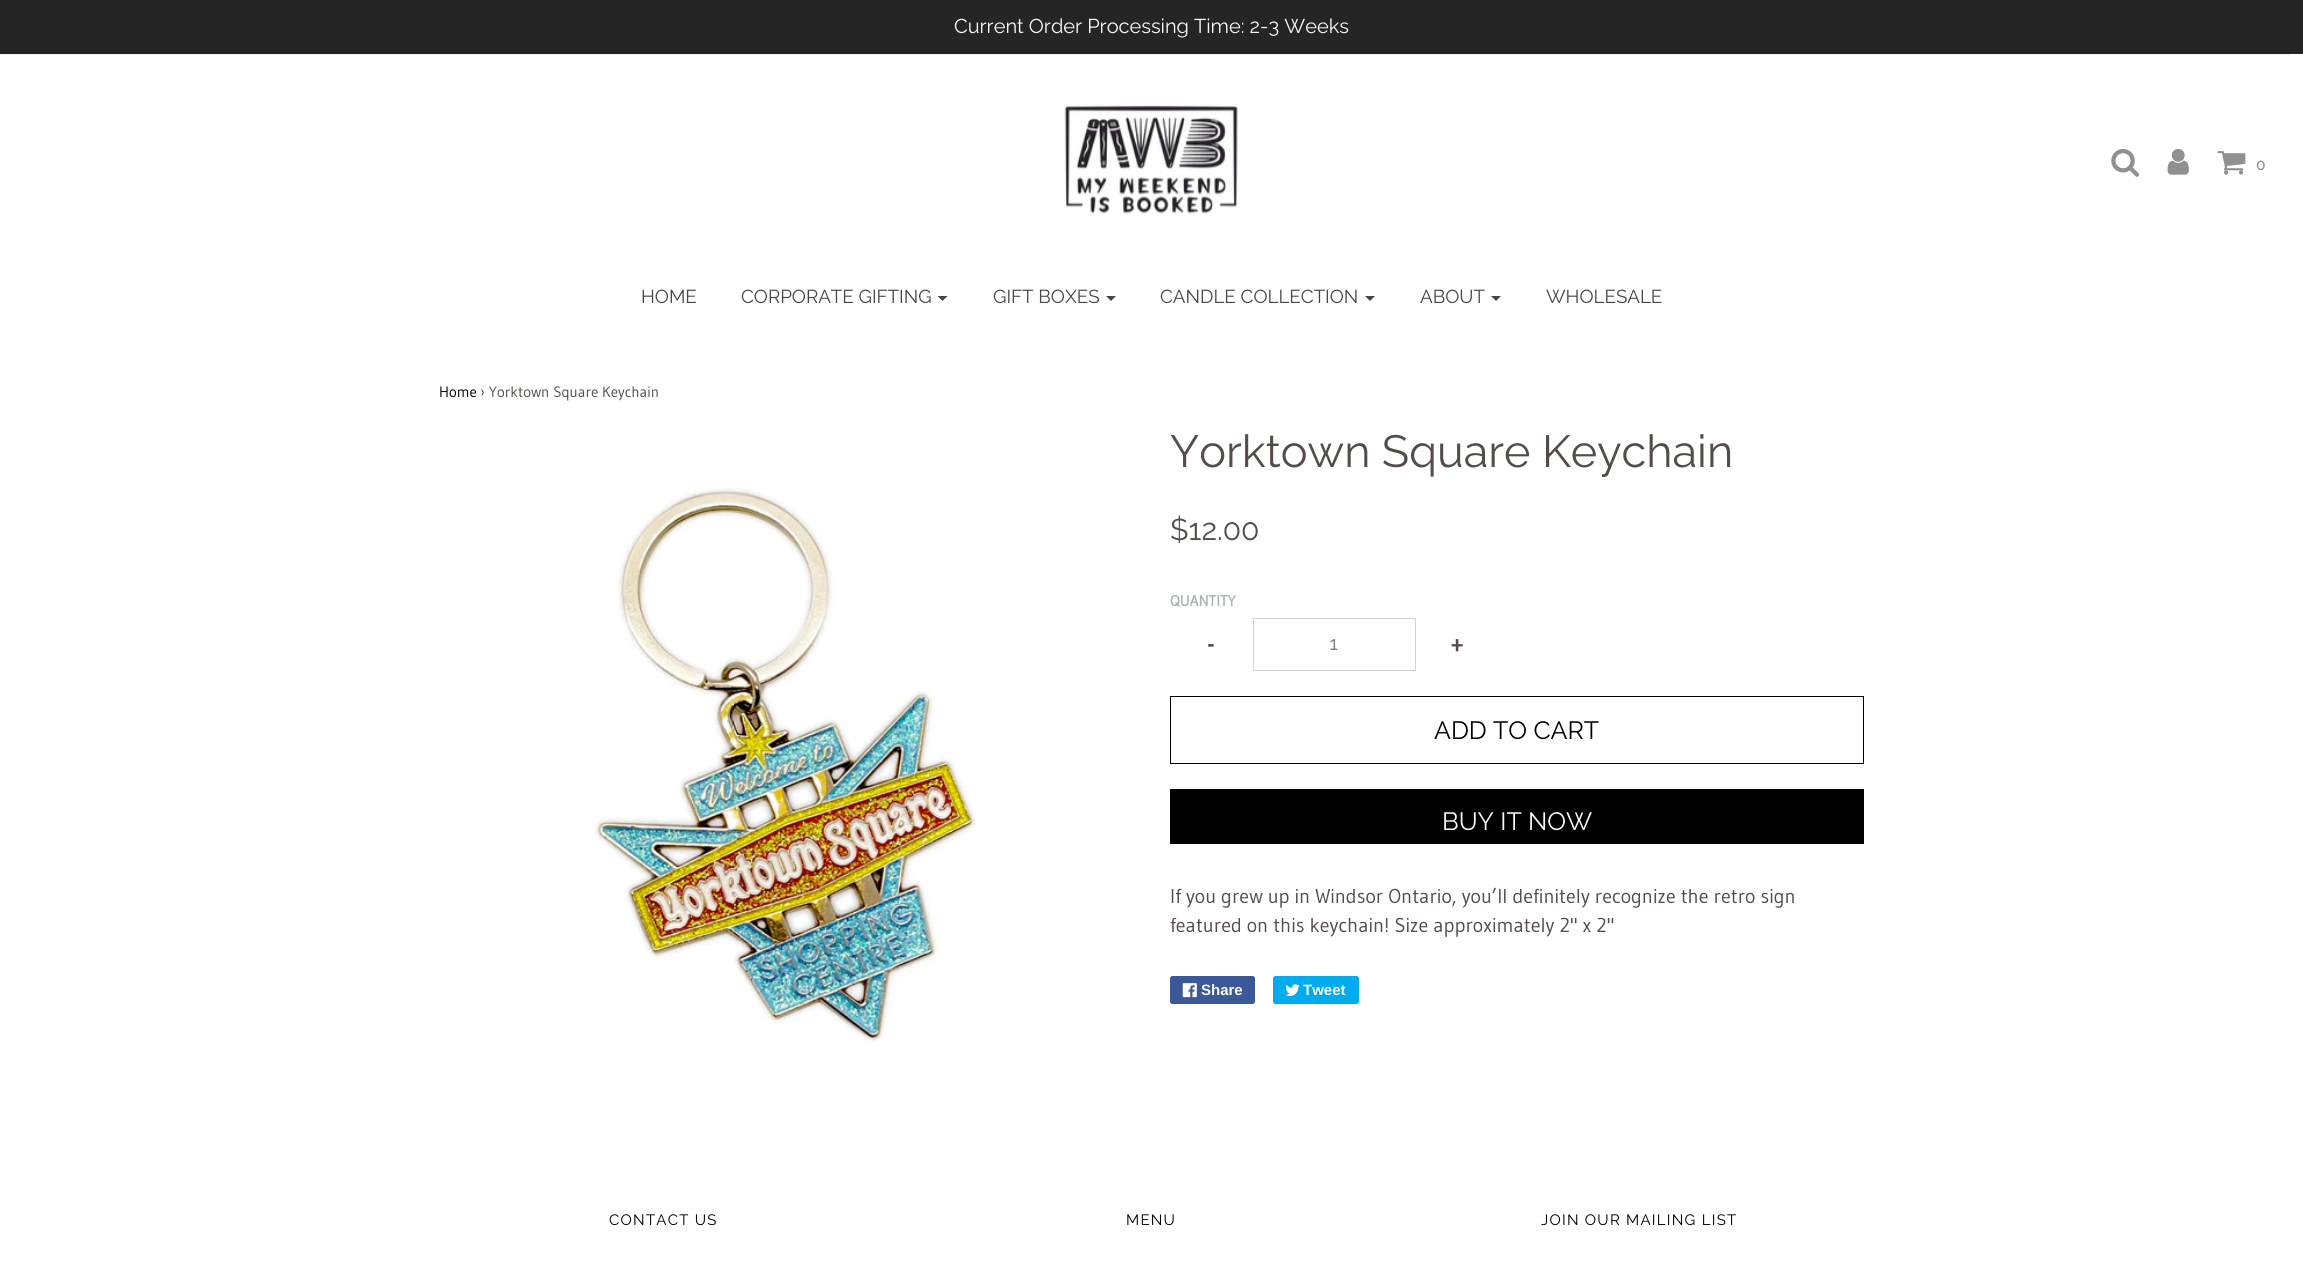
import math
import cairo

surface = cairo.ImageSurface(cairo.FORMAT_RGB24, 2303, 1268)
cr = cairo.Context(surface)
options = cairo.FontOptions()
options.set_hint_metrics(cairo.HINT_METRICS_OFF)
options.set_hint_style(cairo.HINT_STYLE_NONE)
cr.set_font_options(options)
cr.set_miter_limit(4)


def rgb(code):
    cr.set_source_rgb(*(v / 255 for v in bytes.fromhex(code[-6:])))


def tracked(x, y, s, letter, word):
    cr.move_to(x, y)
    for ch in s:
        cr.show_text(ch)
        cr.rel_move_to(letter + word * (ch == ' '), 0)


def rrect(x, y, w, h, r):
    cr.new_sub_path()
    for i, (u, v) in enumerate([(x + w - r, y + h - r), (x + r, y + h - r), (x + r, y + r), (x + w - r, y + r)]):
        cr.arc(u, v, r, i * math.pi / 2, (i + 1) * math.pi / 2)
    cr.close_path()


def image(path, x, y, w, h):
    cr.save()
    cr.set_source_surface(cairo.ImageSurface.create_from_png(path), x, y)
    cr.rectangle(x, y, w, h)
    cr.fill()
    cr.restore()


rgb("#ffffff")
cr.paint()
rgb("#252525")
cr.rectangle(0, 0, 2303, 54)
cr.fill()
rgb("#eeeeee")
cr.rectangle(0, 54, 2290, 1)
cr.fill()
image("img/1.png", 1064, 104, 174, 110)
image("img/2.png", 2111, 149, 29, 28)
image("img/3.png", 2167, 148, 22, 27)
image("img/4.png", 2217, 151, 29, 24)
rgb("#464646")
cr.new_path()
cr.move_to(937.5, 296)
cr.line_to(947.5, 296)
cr.line_to(942.5, 301)
cr.close_path()
cr.fill()
cr.new_path()
cr.move_to(1106, 296)
cr.line_to(1116, 296)
cr.line_to(1111, 301)
cr.close_path()
cr.fill()
cr.new_path()
cr.move_to(1365, 296)
cr.line_to(1375, 296)
cr.line_to(1370, 301)
cr.close_path()
cr.fill()
cr.new_path()
cr.move_to(1491, 296)
cr.line_to(1501, 296)
cr.line_to(1496, 301)
cr.close_path()
cr.fill()
image("img/5.png", 595, 488, 381, 554)
cr.rectangle(1253.5, 618.5, 162, 52)
rgb("#d4d4d4")
cr.set_line_width(1)
cr.stroke()
cr.rectangle(1170.5, 696.5, 693, 67)
rgb("#000000")
cr.stroke()
cr.rectangle(1170, 789, 694, 55)
cr.fill()
rgb("#3b5998")
rrect(1170, 976, 85, 28, 2.5)
cr.fill()
image("img/6.png", 1182, 983, 15, 15)
rgb("#00aced")
rrect(1273, 976, 86, 28, 2.5)
cr.fill()
image("img/7.png", 1285, 984, 15, 12)
cr.select_font_face("Raleway Thin")
cr.set_font_size(20)
rgb("#fafafa")
cr.move_to(954, 33)
cr.show_text("Current Order Processing Time: 2-3 Weeks")
cr.select_font_face("Raleway", cairo.FONT_SLANT_NORMAL, cairo.FONT_WEIGHT_BOLD)
cr.set_font_size(15)
rgb("#909090")
cr.move_to(2256, 170)
cr.show_text("0")
cr.select_font_face("Raleway Thin")
cr.set_font_size(18.75)
rgb("#464646")
for x, y, s in [
    (641, 303, "HOME"),
    (741, 303, "CORPORATE GIFTING"),
    (993, 303, "GIFT BOXES"),
    (1160, 303, "CANDLE COLLECTION"),
    (1420, 303, "ABOUT"),
    (1546, 303, "WHOLESALE"),
]:
    cr.move_to(x, y)
    cr.show_text(s)
cr.select_font_face("Gudea")
cr.set_font_size(15)
rgb("#000000")
cr.move_to(439, 397)
cr.show_text("Home")
rgb("#544c49")
cr.move_to(480, 397)
cr.show_text("› Yorktown Square Keychain")
cr.select_font_face("Raleway Thin")
cr.set_font_size(45)
cr.move_to(1170, 467)
cr.show_text("Yorktown Square Keychain")
cr.set_font_size(30)
cr.move_to(1170, 540)
cr.show_text("$12.00")
cr.select_font_face("Gudea", cairo.FONT_SLANT_NORMAL, cairo.FONT_WEIGHT_BOLD)
cr.set_font_size(15)
rgb("#aab1b4")
cr.move_to(1170, 606)
cr.show_text("QUANTITY")
cr.set_font_size(25)
rgb("#544c49")
cr.move_to(1207, 653)
cr.show_text("-")
cr.set_font_size(15)
rgb("#808080")
cr.move_to(1330, 650)
cr.show_text("1")
cr.set_font_size(25)
rgb("#544c49")
cr.move_to(1451, 653)
cr.show_text("+")
cr.select_font_face("Raleway Thin")
rgb("#000000")
cr.move_to(1434, 739)
cr.show_text("ADD TO CART")
rgb("#fafafa")
cr.move_to(1442, 830)
cr.show_text("BUY IT NOW")
cr.select_font_face("Gudea")
cr.set_font_size(20)
rgb("#544c49")
cr.move_to(1170, 903)
cr.show_text("If you grew up in Windsor Ontario, you’ll definitely recognize the retro sign")
cr.move_to(1170, 932)
cr.show_text("featured on this keychain! Size approximately 2\" x 2\"")
cr.select_font_face("Liberation Sans", cairo.FONT_SLANT_NORMAL, cairo.FONT_WEIGHT_BOLD)
cr.set_font_size(15)
rgb("#fafafa")
cr.move_to(1201, 995)
cr.show_text("Share")
cr.move_to(1303, 995)
cr.show_text("Tweet")
cr.select_font_face("Raleway Thin")
rgb("#000000")
for x, y, s in [
    (609, 1225, "CONTACT US"),
    (1126, 1225, "MENU"),
    (1541, 1225, "JOIN OUR MAILING LIST"),
]:
    tracked(x, y, s, 1.25, 0)
surface.write_to_png("page.png")
